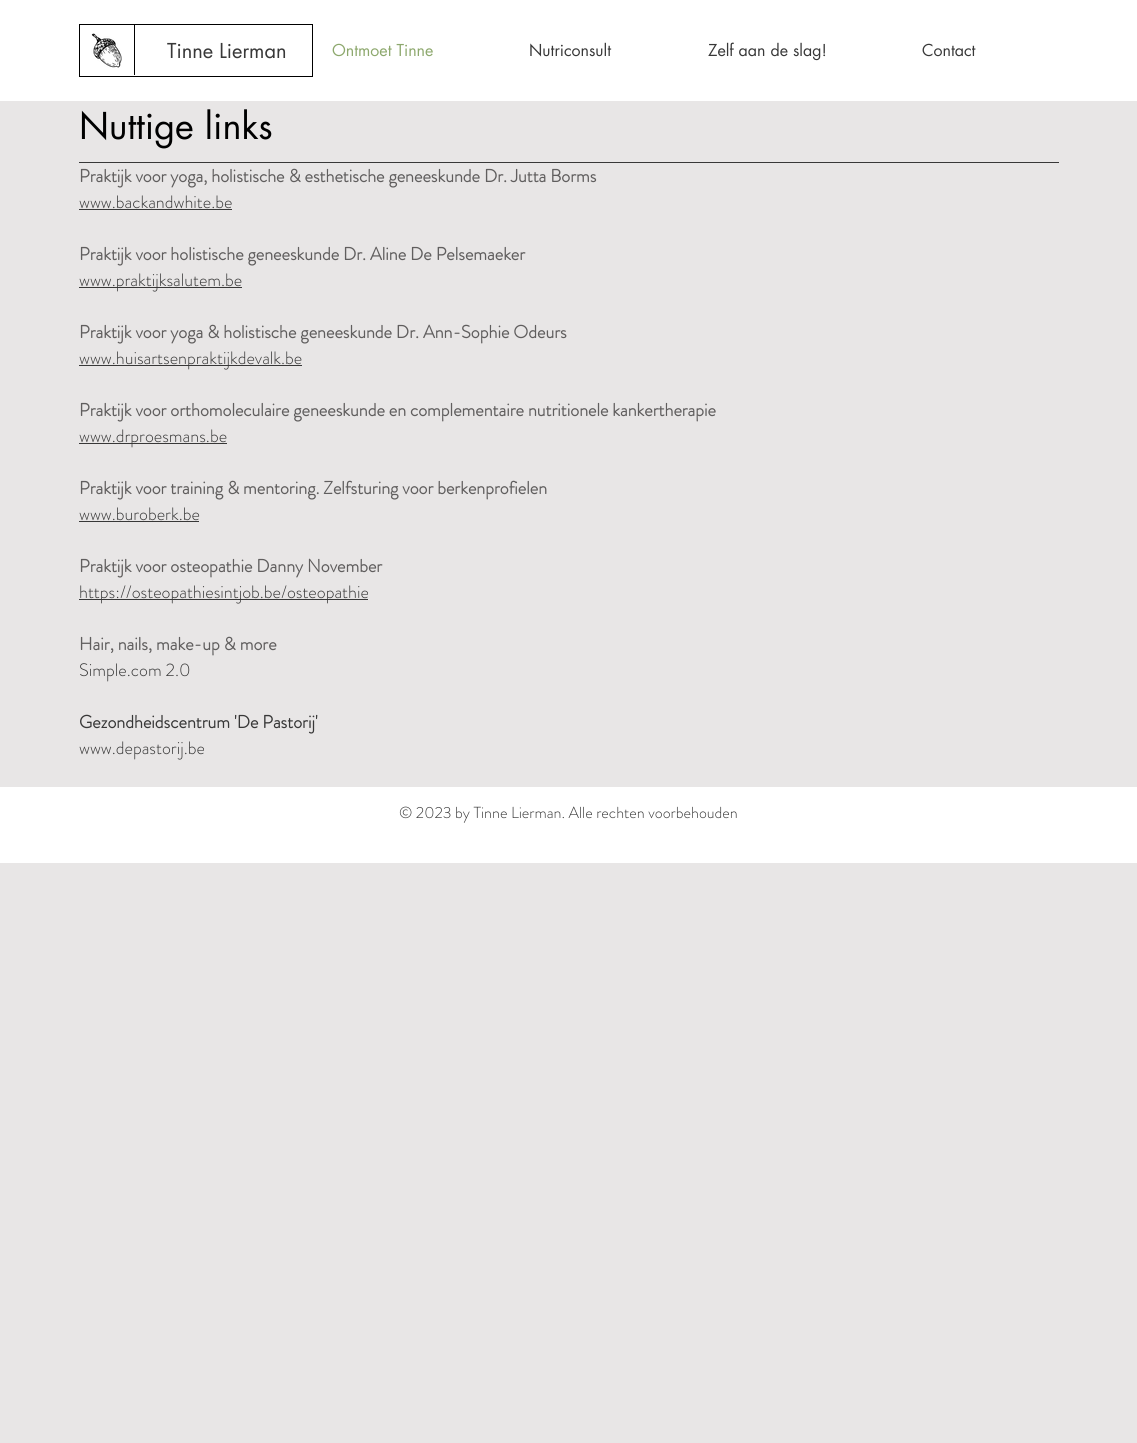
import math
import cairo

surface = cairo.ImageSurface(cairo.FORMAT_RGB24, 1137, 1443)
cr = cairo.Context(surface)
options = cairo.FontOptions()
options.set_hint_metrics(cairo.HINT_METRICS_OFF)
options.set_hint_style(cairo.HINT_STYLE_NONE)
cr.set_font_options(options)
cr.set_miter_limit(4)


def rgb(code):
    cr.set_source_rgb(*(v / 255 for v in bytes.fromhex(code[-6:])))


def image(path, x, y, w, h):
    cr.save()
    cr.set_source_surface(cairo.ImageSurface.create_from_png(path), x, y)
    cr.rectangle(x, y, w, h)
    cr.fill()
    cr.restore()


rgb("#e8e6e6")
cr.paint()
rgb("#ffffff")
cr.rectangle(0, 0, 1137, 101)
cr.fill()
cr.rectangle(79.5, 24.5, 233, 52)
rgb("#000000")
cr.set_line_width(1)
cr.stroke()
image("img/1.png", 91, 33, 31, 35)
for x, y, w, h, color in [
    (134, 25, 1, 50, "#000000"),
    (79, 162, 980, 1, "#383838"),
    (79, 209, 153, 1, "#383838"),
    (79, 287, 163, 1, "#383838"),
    (79, 365, 223, 1, "#383838"),
    (79, 443, 148, 1, "#383838"),
    (79, 521, 120, 1, "#383838"),
    (79, 599, 289, 1, "#383838"),
    (0, 787, 1137, 76, "#ffffff"),
]:
    rgb(color)
    cr.rectangle(x, y, w, h)
    cr.fill()
cr.select_font_face("futura")
cr.set_font_size(20)
rgb("#383838")
cr.move_to(167, 58)
cr.show_text("Tinne Lierman")
cr.set_font_size(16)
rgb("#8da86d")
cr.move_to(332, 56)
cr.show_text("Ontmoet Tinne")
rgb("#383838")
for x, y, s in [
    (529, 56, "Nutriconsult"),
    (708, 56, "Zelf aan de slag!"),
    (922, 56, "Contact"),
]:
    cr.move_to(x, y)
    cr.show_text(s)
cr.set_font_size(36)
rgb("#000000")
cr.move_to(79, 139)
cr.show_text("Nuttige links")
cr.select_font_face("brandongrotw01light", cairo.FONT_SLANT_NORMAL, cairo.FONT_WEIGHT_BOLD)
cr.set_font_size(18)
rgb("#605e5e")
cr.move_to(79, 182)
cr.show_text("Praktijk voor yoga, holistische & esthetische geneeskunde Dr. Jutta Borms")
cr.select_font_face("brandongrotw01light Light")
rgb("#383838")
cr.move_to(79, 208)
cr.show_text("www.backandwhite.be")
cr.select_font_face("brandongrotw01light", cairo.FONT_SLANT_NORMAL, cairo.FONT_WEIGHT_BOLD)
rgb("#605e5e")
cr.move_to(79, 260)
cr.show_text("Praktijk voor holistische geneeskunde Dr. Aline De Pelsemaeker")
cr.select_font_face("brandongrotw01light Light")
rgb("#383838")
cr.move_to(79, 286)
cr.show_text("www.praktijksalutem.be")
cr.select_font_face("brandongrotw01light", cairo.FONT_SLANT_NORMAL, cairo.FONT_WEIGHT_BOLD)
rgb("#605e5e")
cr.move_to(79, 338)
cr.show_text("Praktijk voor yoga & holistische geneeskunde Dr. Ann-Sophie Odeurs")
cr.select_font_face("brandongrotw01light Light")
rgb("#383838")
cr.move_to(79, 364)
cr.show_text("www.huisartsenpraktijkdevalk.be")
cr.select_font_face("brandongrotw01light", cairo.FONT_SLANT_NORMAL, cairo.FONT_WEIGHT_BOLD)
rgb("#605e5e")
cr.move_to(79, 416)
cr.show_text("Praktijk voor orthomoleculaire geneeskunde en complementaire nutritionele kankertherapie")
cr.select_font_face("brandongrotw01light Light")
rgb("#383838")
cr.move_to(79, 442)
cr.show_text("www.drproesmans.be")
cr.select_font_face("brandongrotw01light", cairo.FONT_SLANT_NORMAL, cairo.FONT_WEIGHT_BOLD)
rgb("#605e5e")
cr.move_to(79, 494)
cr.show_text("Praktijk voor training & mentoring. Zelfsturing voor berkenprofielen")
cr.select_font_face("brandongrotw01light Light")
rgb("#383838")
cr.move_to(79, 520)
cr.show_text("www.buroberk.be")
cr.select_font_face("brandongrotw01light", cairo.FONT_SLANT_NORMAL, cairo.FONT_WEIGHT_BOLD)
rgb("#605e5e")
cr.move_to(79, 572)
cr.show_text("Praktijk voor osteopathie Danny November")
cr.select_font_face("brandongrotw01light Light")
rgb("#383838")
cr.move_to(79, 598)
cr.show_text("https://osteopathiesintjob.be/osteopathie")
cr.select_font_face("brandongrotw01light", cairo.FONT_SLANT_NORMAL, cairo.FONT_WEIGHT_BOLD)
rgb("#605e5e")
cr.move_to(79, 650)
cr.show_text("Hair, nails, make-up & more")
cr.select_font_face("brandongrotw01light Light")
rgb("#383838")
cr.move_to(79, 676)
cr.show_text("Simple.com 2.0")
cr.select_font_face("brandongrotw01light", cairo.FONT_SLANT_NORMAL, cairo.FONT_WEIGHT_BOLD)
cr.move_to(79, 728)
cr.show_text("Gezondheidscentrum 'De Pastorij'")
cr.select_font_face("brandongrotw01light Light")
cr.move_to(79, 754)
cr.show_text("www.depastorij.be")
cr.set_font_size(16)
cr.move_to(399, 818)
cr.show_text("© 2023 by Tinne Lierman. Alle rechten voorbehouden")
surface.write_to_png("page.png")
